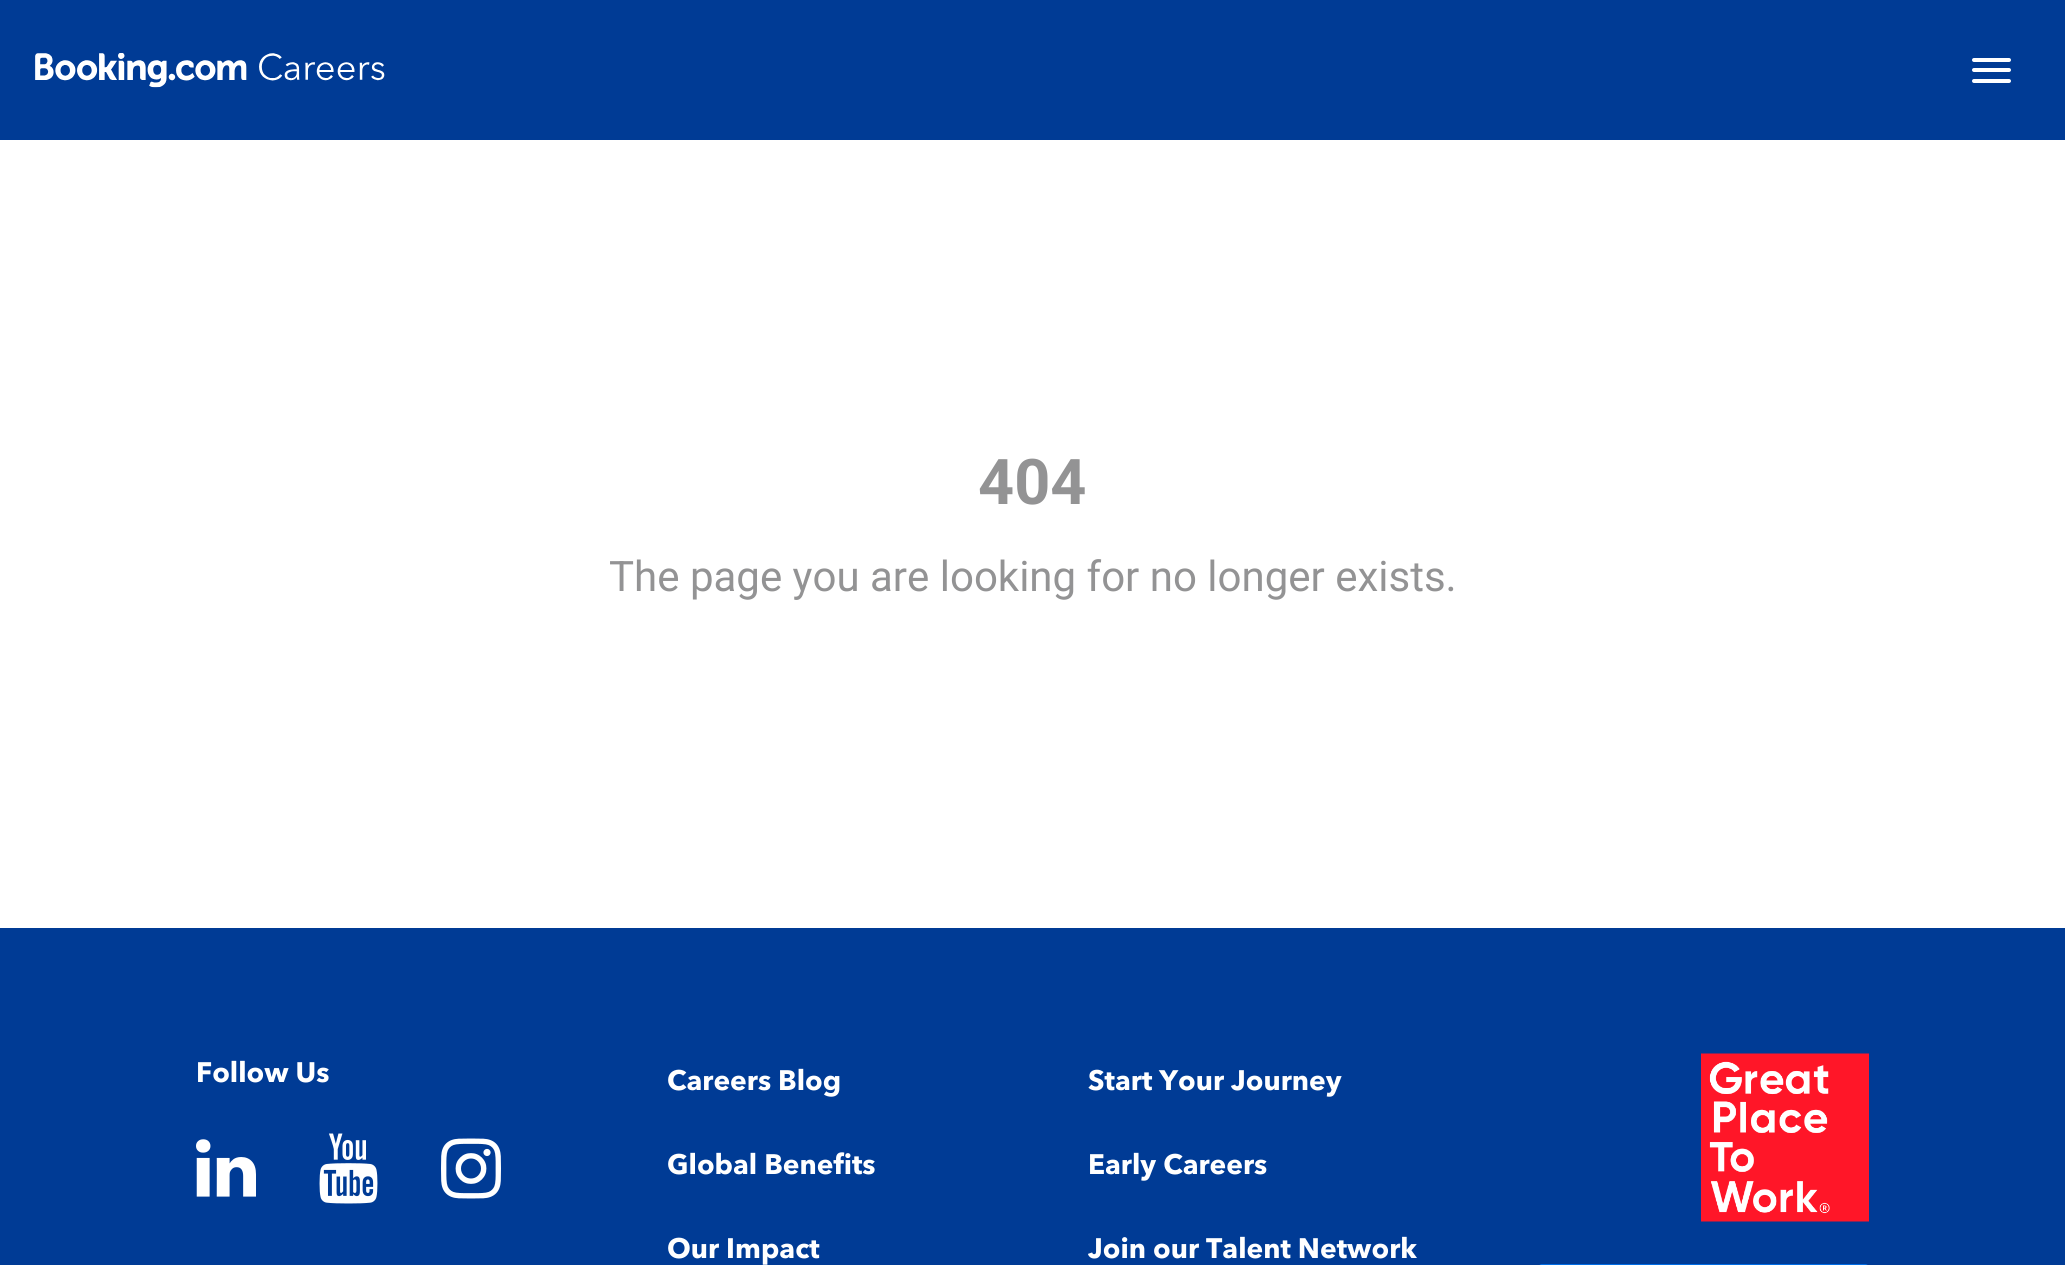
import math
import cairo

surface = cairo.ImageSurface(cairo.FORMAT_RGB24, 2065, 1265)
cr = cairo.Context(surface)
options = cairo.FontOptions()
options.set_hint_metrics(cairo.HINT_METRICS_OFF)
options.set_hint_style(cairo.HINT_STYLE_NONE)
cr.set_font_options(options)
cr.set_miter_limit(4)


def rgb(code):
    cr.set_source_rgb(*(v / 255 for v in bytes.fromhex(code[-6:])))


def rrect(x, y, w, h, r):
    cr.new_sub_path()
    for i, (u, v) in enumerate([(x + w - r, y + h - r), (x + r, y + h - r), (x + r, y + r), (x + w - r, y + r)]):
        cr.arc(u, v, r, i * math.pi / 2, (i + 1) * math.pi / 2)
    cr.close_path()


def image(path, x, y, w, h):
    cr.save()
    cr.set_source_surface(cairo.ImageSurface.create_from_png(path), x, y)
    cr.rectangle(x, y, w, h)
    cr.fill()
    cr.restore()


rgb("#ffffff")
cr.paint()
rgb("#003b95")
cr.rectangle(0, 0, 2065, 140)
cr.fill()
image("img/1.png", 35, 53, 350, 35)
rgb("#ffffff")
rrect(1972, 58, 39, 4, 2)
cr.fill()
rrect(1972, 68, 39, 4, 2)
cr.fill()
rrect(1972, 79, 39, 4, 2)
cr.fill()
rgb("#003b95")
cr.rectangle(0, 928, 2065, 337)
cr.fill()
image("img/2.png", 196, 1139, 60, 58)
image("img/3.png", 319, 1133, 59, 71)
image("img/4.png", 441, 1138, 60, 61)
image("img/5.png", 1701, 1053, 168, 169)
rgb("#006ce4")
rrect(1538, 1264, 331, 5, 4)
cr.fill()
cr.select_font_face("Roboto", cairo.FONT_SLANT_NORMAL, cairo.FONT_WEIGHT_BOLD)
cr.set_font_size(63)
rgb("#939394")
cr.move_to(978, 504)
cr.show_text("404")
cr.select_font_face("Roboto")
cr.set_font_size(42)
cr.move_to(609, 591)
cr.show_text("The page you are looking for no longer exists.")
cr.select_font_face("Avenir Next", cairo.FONT_SLANT_NORMAL, cairo.FONT_WEIGHT_BOLD)
cr.set_font_size(28)
rgb("#ffffff")
for x, y, s in [
    (196, 1082, "Follow Us"),
    (667, 1090, "Careers Blog"),
    (667, 1174, "Global Benefits"),
    (667, 1258, "Our Impact"),
    (1088, 1090, "Start Your Journey"),
    (1088, 1174, "Early Careers"),
    (1088, 1258, "Join our Talent Network"),
]:
    cr.move_to(x, y)
    cr.show_text(s)
surface.write_to_png("page.png")
